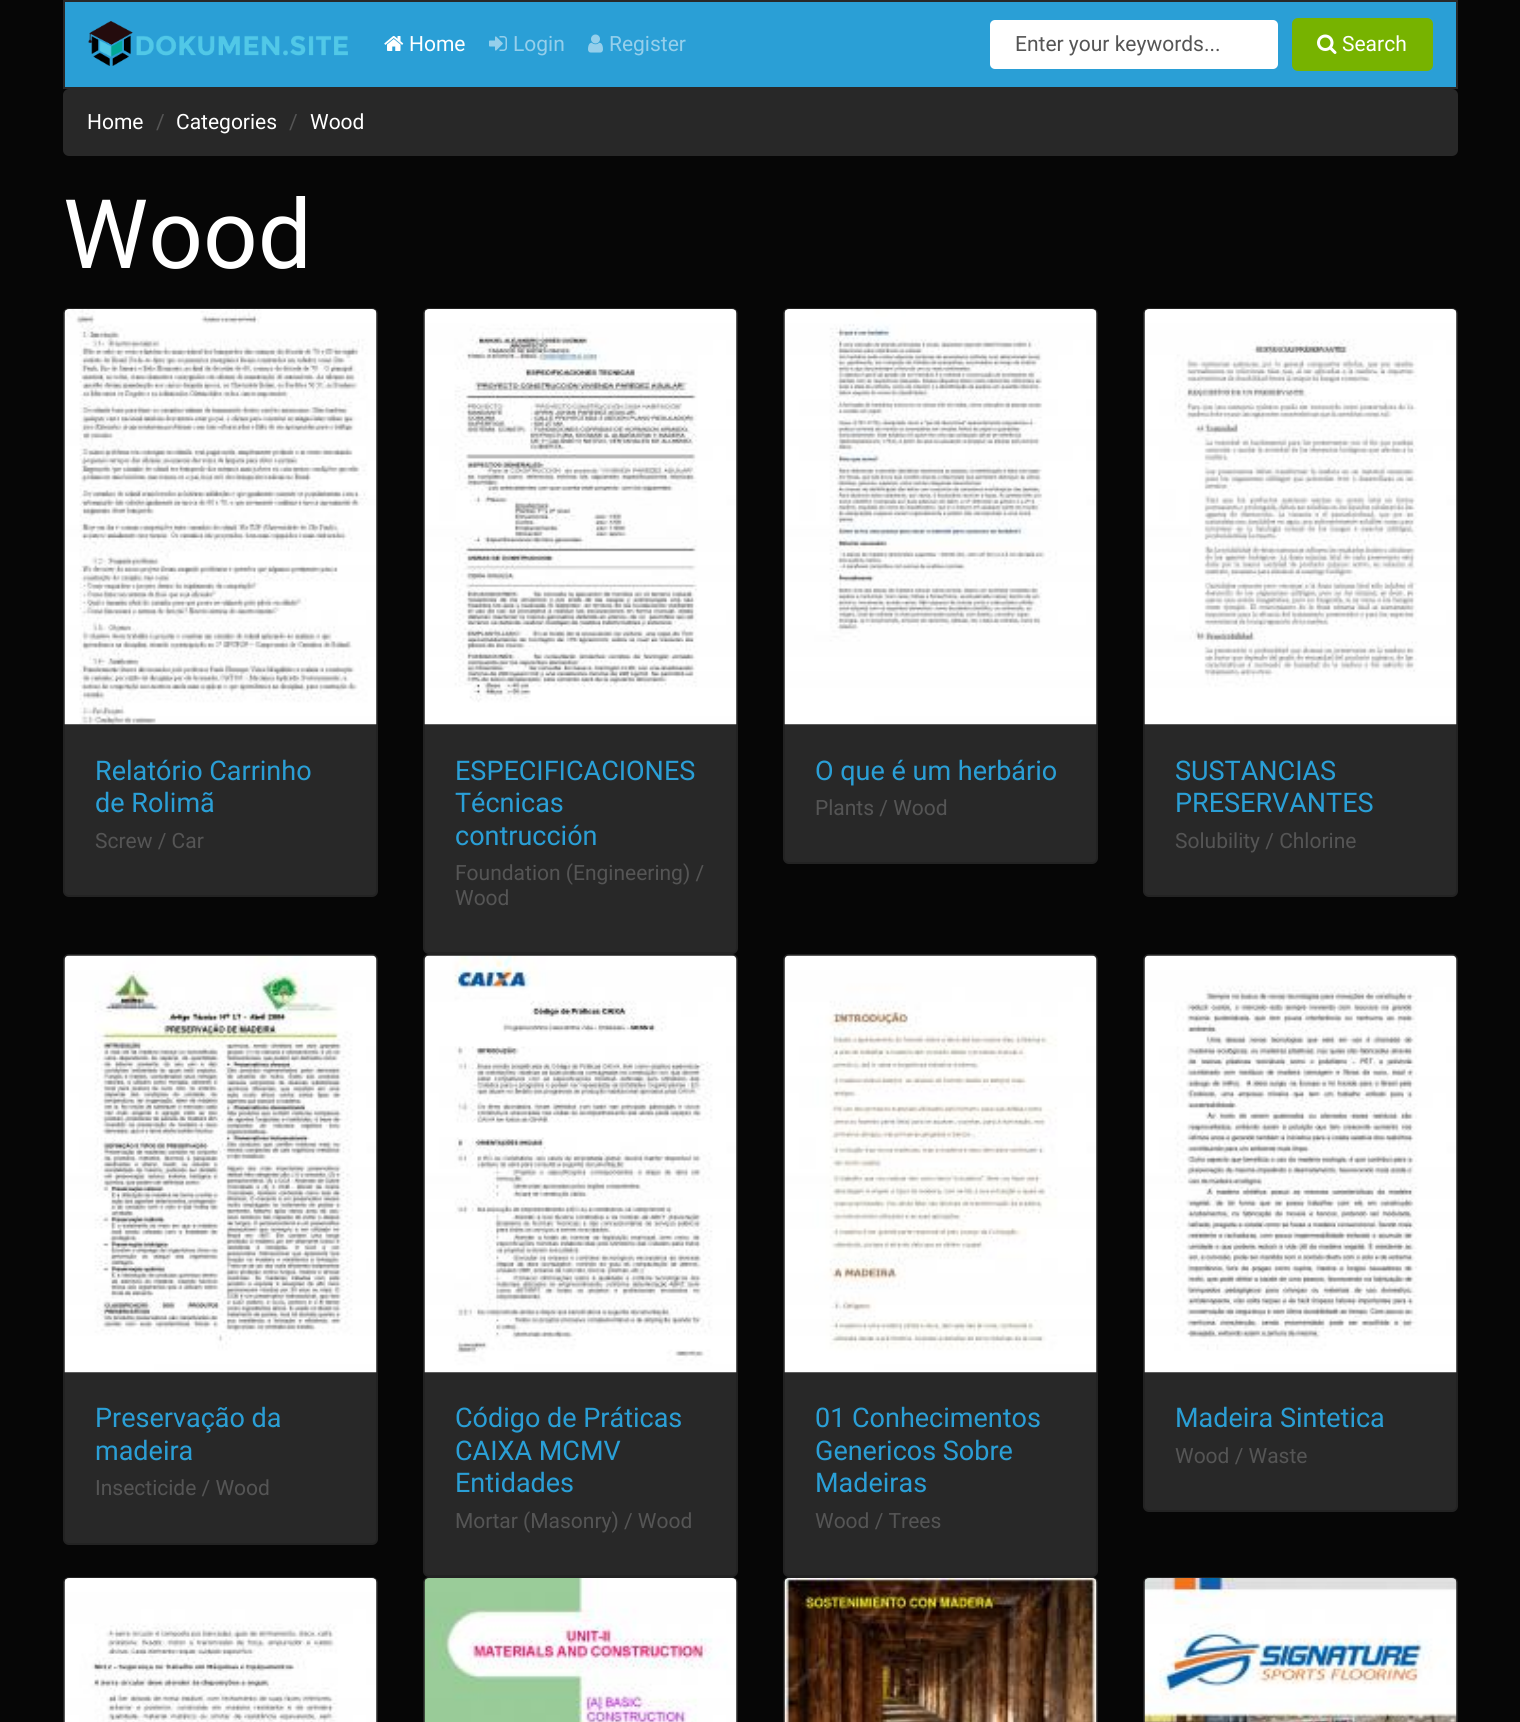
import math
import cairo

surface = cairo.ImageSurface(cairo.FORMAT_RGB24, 1520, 1722)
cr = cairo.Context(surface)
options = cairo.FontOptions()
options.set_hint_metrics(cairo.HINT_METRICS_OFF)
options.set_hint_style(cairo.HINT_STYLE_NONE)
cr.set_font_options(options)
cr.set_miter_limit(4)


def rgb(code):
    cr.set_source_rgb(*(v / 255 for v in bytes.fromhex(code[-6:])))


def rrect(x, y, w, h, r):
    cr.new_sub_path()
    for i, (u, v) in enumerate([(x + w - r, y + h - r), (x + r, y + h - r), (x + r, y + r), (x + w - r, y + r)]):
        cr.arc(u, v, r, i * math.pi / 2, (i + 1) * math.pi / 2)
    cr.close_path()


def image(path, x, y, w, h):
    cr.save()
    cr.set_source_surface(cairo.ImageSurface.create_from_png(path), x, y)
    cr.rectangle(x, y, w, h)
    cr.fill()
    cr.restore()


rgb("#060606")
cr.paint()
rgb("#2a9fd6")
cr.rectangle(64, 1, 1393, 87)
cr.fill_preserve()
rgb("#282828")
cr.stroke()
image("img/1.png", 88, 21, 260, 45)
image("img/2.png", 384, 36, 20, 15)
image("img/3.png", 489, 36, 18, 15)
image("img/4.png", 588, 34, 15, 19)
rgb("#ffffff")
rrect(990, 20, 288, 49, 5)
cr.fill()
rgb("#77b300")
rrect(1293, 19, 139, 51, 5)
cr.fill_preserve()
cr.stroke()
image("img/5.png", 1317, 34, 20, 20)
rgb("#282828")
rrect(63, 89, 1395, 67, 6)
cr.fill()
rrect(63, 308, 315, 589, 6)
cr.fill()
rrect(64, 309, 313, 587, 5)
cr.set_source_rgba(0, 0, 0, 0.12)
cr.stroke()
image("img/6.png", 64, 309, 313, 416)
rgb("#282828")
rrect(423, 308, 315, 646, 6)
cr.fill()
rrect(424, 309, 313, 644, 5)
cr.set_source_rgba(0, 0, 0, 0.12)
cr.stroke()
image("img/7.png", 424, 309, 313, 416)
rgb("#282828")
rrect(783, 308, 315, 556, 6)
cr.fill()
rrect(784, 309, 313, 554, 5)
cr.set_source_rgba(0, 0, 0, 0.12)
cr.stroke()
image("img/8.png", 784, 309, 313, 416)
rgb("#282828")
rrect(1143, 308, 315, 589, 6)
cr.fill()
rrect(1144, 309, 313, 587, 5)
cr.set_source_rgba(0, 0, 0, 0.12)
cr.stroke()
image("img/9.png", 1144, 309, 313, 416)
rgb("#282828")
rrect(63, 954, 315, 591, 6)
cr.fill()
rrect(64, 955, 313, 589, 5)
cr.set_source_rgba(0, 0, 0, 0.12)
cr.stroke()
image("img/10.png", 64, 955, 313, 418)
rgb("#282828")
rrect(423, 954, 315, 623, 6)
cr.fill()
rrect(424, 955, 313, 621, 5)
cr.set_source_rgba(0, 0, 0, 0.12)
cr.stroke()
image("img/11.png", 424, 955, 313, 418)
rgb("#282828")
rrect(783, 954, 315, 623, 6)
cr.fill()
rrect(784, 955, 313, 621, 5)
cr.set_source_rgba(0, 0, 0, 0.12)
cr.stroke()
image("img/12.png", 784, 955, 313, 418)
rgb("#282828")
rrect(1143, 954, 315, 558, 6)
cr.fill()
rrect(1144, 955, 313, 556, 5)
cr.set_source_rgba(0, 0, 0, 0.12)
cr.stroke()
image("img/13.png", 1144, 955, 313, 418)
rgb("#282828")
rrect(63, 1577, 315, 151, 6)
cr.fill()
rrect(64, 1578, 313, 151, 5)
cr.set_source_rgba(0, 0, 0, 0.12)
cr.stroke()
image("img/14.png", 64, 1578, 313, 144)
rgb("#282828")
rrect(423, 1577, 315, 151, 6)
cr.fill()
rrect(424, 1578, 313, 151, 5)
cr.set_source_rgba(0, 0, 0, 0.12)
cr.stroke()
image("img/15.png", 424, 1578, 313, 144)
rgb("#282828")
rrect(783, 1577, 315, 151, 6)
cr.fill()
rrect(784, 1578, 313, 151, 5)
cr.set_source_rgba(0, 0, 0, 0.12)
cr.stroke()
image("img/16.png", 784, 1578, 313, 144)
rgb("#282828")
rrect(1143, 1577, 315, 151, 6)
cr.fill()
rrect(1144, 1578, 313, 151, 5)
cr.set_source_rgba(0, 0, 0, 0.12)
cr.stroke()
image("img/17.png", 1144, 1578, 313, 144)
cr.select_font_face("Roboto")
cr.set_font_size(21)
rgb("#ffffff")
cr.move_to(409, 51)
cr.show_text("Home")
rgb("#95cfeb")
cr.move_to(513, 51)
cr.show_text("Login")
cr.move_to(609, 51)
cr.show_text("Register")
rgb("#555555")
cr.move_to(1015, 51)
cr.show_text("Enter your keywords...")
rgb("#ffffff")
cr.move_to(1342, 51)
cr.show_text("Search")
cr.move_to(87, 129)
cr.show_text("Home")
rgb("#555555")
cr.move_to(156, 129)
cr.show_text("/")
rgb("#ffffff")
cr.move_to(176, 129)
cr.show_text("Categories")
rgb("#555555")
cr.move_to(289, 129)
cr.show_text("/")
rgb("#ffffff")
cr.move_to(310, 129)
cr.show_text("Wood")
cr.set_font_size(96)
cr.move_to(63, 268)
cr.show_text("Wood")
cr.set_font_size(27)
rgb("#2a9fd6")
cr.move_to(95, 780)
cr.show_text("Relatório Carrinho")
cr.move_to(95, 812)
cr.show_text("de Rolimã")
cr.set_font_size(21)
rgb("#555555")
cr.move_to(95, 848)
cr.show_text("Screw / Car")
cr.set_font_size(27)
rgb("#2a9fd6")
for x, y, s in [
    (455, 780, "ESPECIFICACIONES"),
    (455, 812, "Técnicas"),
    (455, 845, "contrucción"),
]:
    cr.move_to(x, y)
    cr.show_text(s)
cr.set_font_size(21)
rgb("#555555")
cr.move_to(455, 880)
cr.show_text("Foundation (Engineering) /")
cr.move_to(455, 905)
cr.show_text("Wood")
cr.set_font_size(27)
rgb("#2a9fd6")
cr.move_to(815, 780)
cr.show_text("O que é um herbário")
cr.set_font_size(21)
rgb("#555555")
cr.move_to(815, 815)
cr.show_text("Plants / Wood")
cr.set_font_size(27)
rgb("#2a9fd6")
cr.move_to(1175, 780)
cr.show_text("SUSTANCIAS")
cr.move_to(1175, 812)
cr.show_text("PRESERVANTES")
cr.set_font_size(21)
rgb("#555555")
cr.move_to(1175, 848)
cr.show_text("Solubility / Chlorine")
cr.set_font_size(27)
rgb("#2a9fd6")
cr.move_to(95, 1427)
cr.show_text("Preservação da")
cr.move_to(95, 1460)
cr.show_text("madeira")
cr.set_font_size(21)
rgb("#555555")
cr.move_to(95, 1495)
cr.show_text("Insecticide / Wood")
cr.set_font_size(27)
rgb("#2a9fd6")
for x, y, s in [
    (455, 1427, "Código de Práticas"),
    (455, 1460, "CAIXA MCMV"),
    (455, 1492, "Entidades"),
]:
    cr.move_to(x, y)
    cr.show_text(s)
cr.set_font_size(21)
rgb("#555555")
cr.move_to(455, 1528)
cr.show_text("Mortar (Masonry) / Wood")
cr.set_font_size(27)
rgb("#2a9fd6")
for x, y, s in [
    (815, 1427, "01 Conhecimentos"),
    (815, 1460, "Genericos Sobre"),
    (815, 1492, "Madeiras"),
]:
    cr.move_to(x, y)
    cr.show_text(s)
cr.set_font_size(21)
rgb("#555555")
cr.move_to(815, 1528)
cr.show_text("Wood / Trees")
cr.set_font_size(27)
rgb("#2a9fd6")
cr.move_to(1175, 1427)
cr.show_text("Madeira Sintetica")
cr.set_font_size(21)
rgb("#555555")
cr.move_to(1175, 1463)
cr.show_text("Wood / Waste")
surface.write_to_png("page.png")
